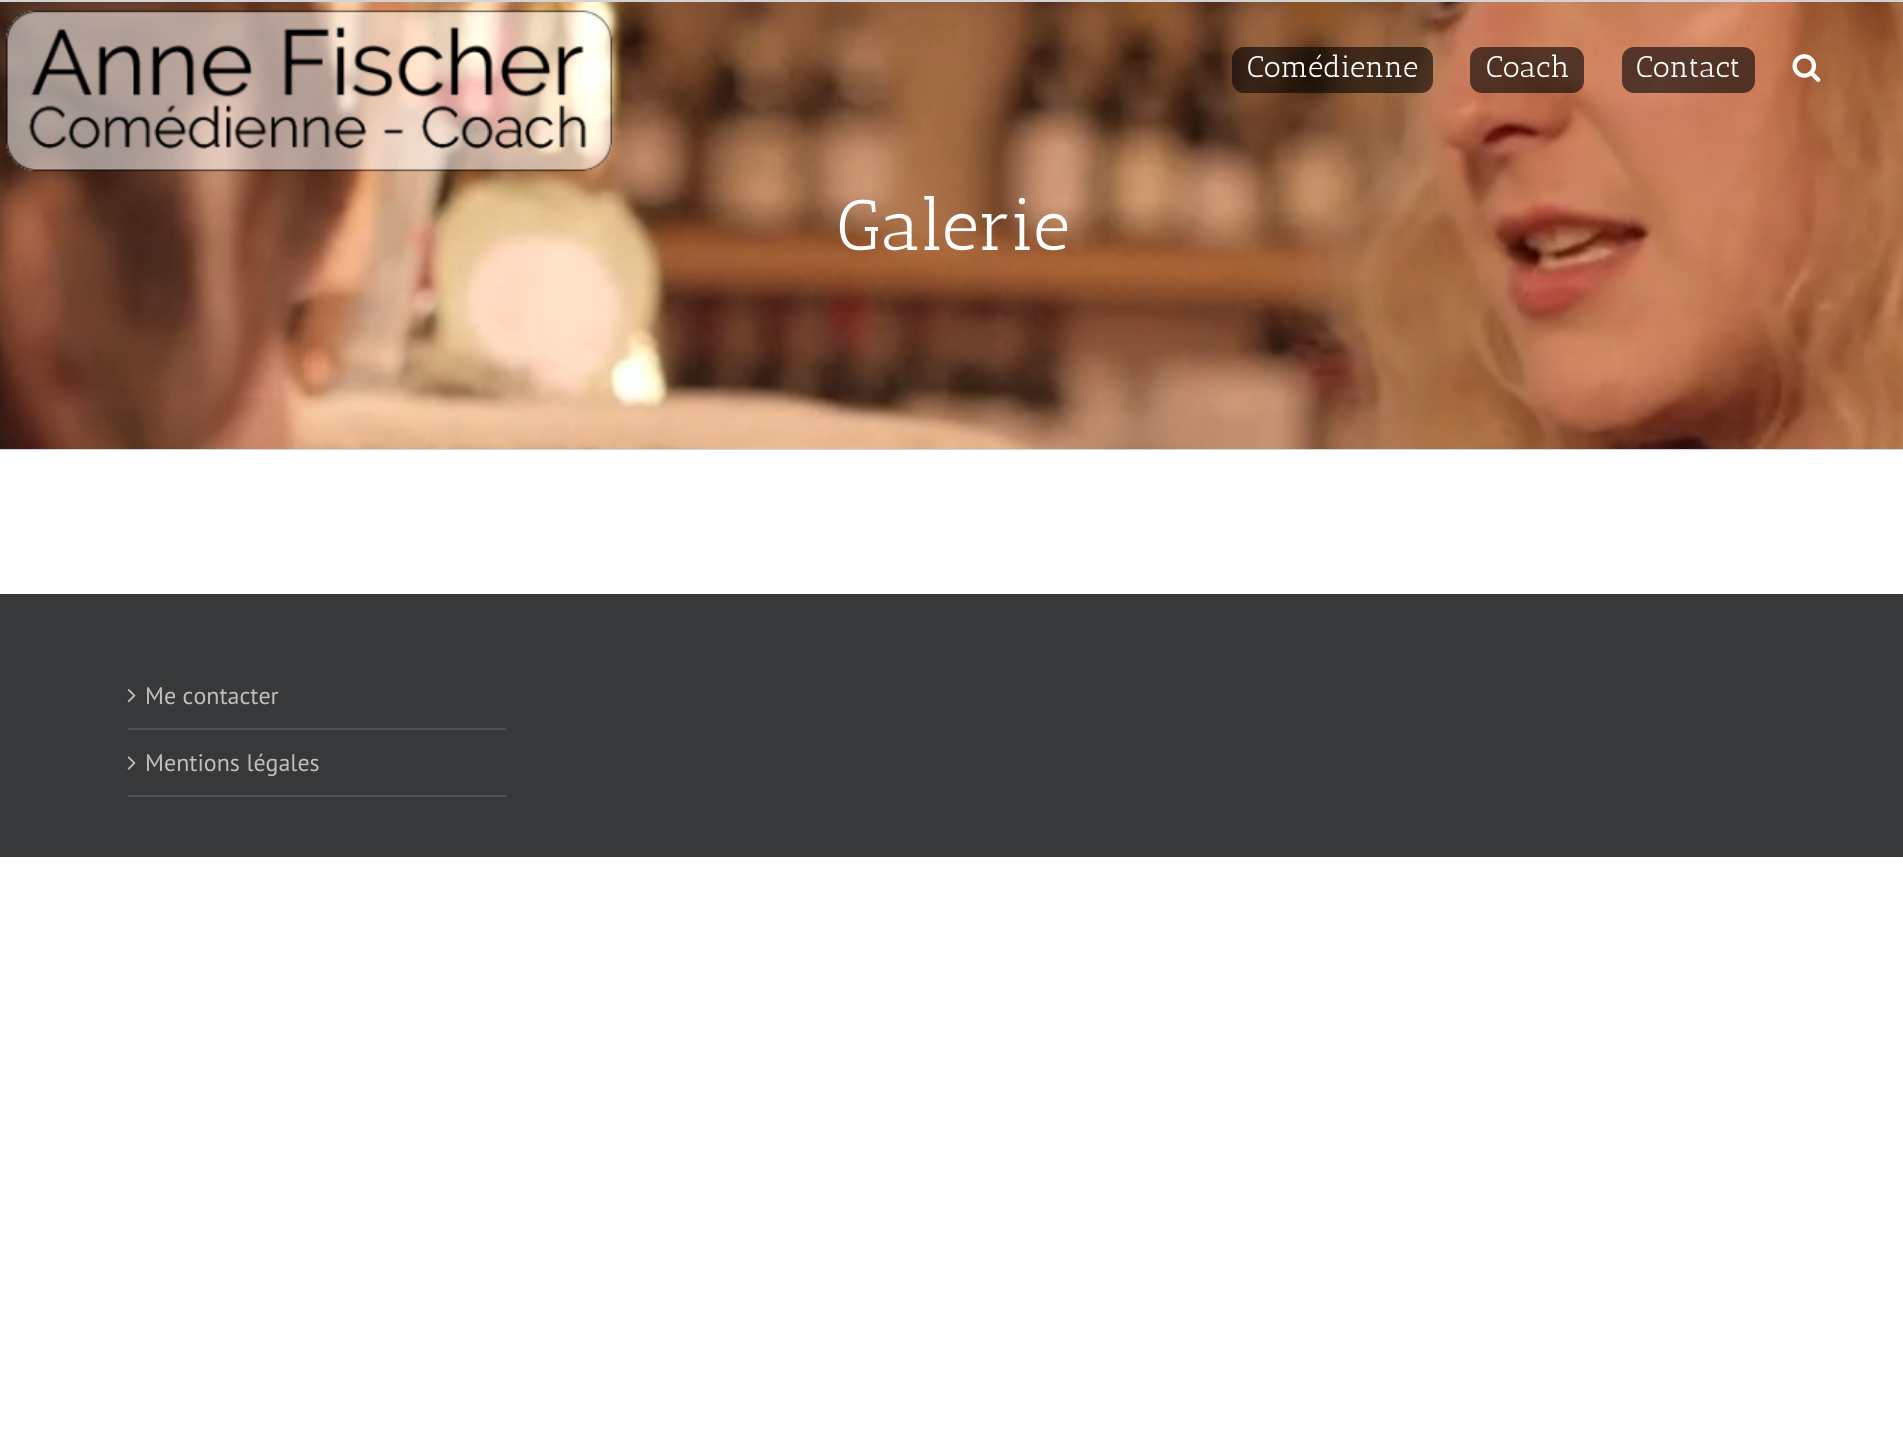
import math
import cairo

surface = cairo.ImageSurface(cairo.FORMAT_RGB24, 1903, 1432)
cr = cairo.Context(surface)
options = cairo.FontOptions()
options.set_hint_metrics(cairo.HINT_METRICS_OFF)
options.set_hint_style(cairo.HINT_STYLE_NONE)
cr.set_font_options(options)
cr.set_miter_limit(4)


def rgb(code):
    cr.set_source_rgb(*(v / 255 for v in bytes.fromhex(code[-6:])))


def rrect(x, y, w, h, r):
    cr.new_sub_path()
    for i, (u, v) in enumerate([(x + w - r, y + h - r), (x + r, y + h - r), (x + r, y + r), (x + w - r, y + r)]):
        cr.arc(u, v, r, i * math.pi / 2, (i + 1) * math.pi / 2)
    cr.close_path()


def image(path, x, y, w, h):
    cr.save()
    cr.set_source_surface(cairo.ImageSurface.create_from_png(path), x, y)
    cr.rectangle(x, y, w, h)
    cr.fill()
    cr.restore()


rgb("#ffffff")
cr.paint()
image("img/3.png", 0, 2, 1903, 447)
image("img/1.png", 5, 10, 608, 162)
cr.set_source_rgba(0, 0, 0, 0.6)
rrect(1232, 47, 201, 46, 12)
cr.fill()
rrect(1470, 47, 114, 46, 12)
cr.fill()
rrect(1622, 47, 133, 46, 12)
cr.fill()
image("img/2.png", 1792, 54, 29, 28)
for x, y, w, h, color in [
    (0, 0, 1903, 2, "#d2d3d4"),
    (0, 449, 1903, 1, "#d2d3d4"),
    (0, 594, 1903, 263, "#363839"),
    (128, 728, 378, 2, "#505152"),
]:
    rgb(color)
    cr.rectangle(x, y, w, h)
    cr.fill()
image("img/4.png", 127, 689, 9, 14)
cr.rectangle(128, 795, 378, 2)
cr.fill()
image("img/5.png", 127, 756, 9, 14)
cr.select_font_face("Antic Slab")
cr.set_font_size(30)
rgb("#ffffff")
for x, y, s in [
    (1247, 77, "Comédienne"),
    (1486, 77, "Coach"),
    (1636, 77, "Contact"),
]:
    cr.move_to(x, y)
    cr.show_text(s)
cr.set_font_size(72)
cr.move_to(837, 250)
cr.show_text("Galerie")
cr.select_font_face("PT Sans")
cr.set_font_size(24)
rgb("#bfbfbf")
cr.move_to(145, 704)
cr.show_text("Me contacter")
cr.move_to(145, 771)
cr.show_text("Mentions légales")
surface.write_to_png("page.png")
